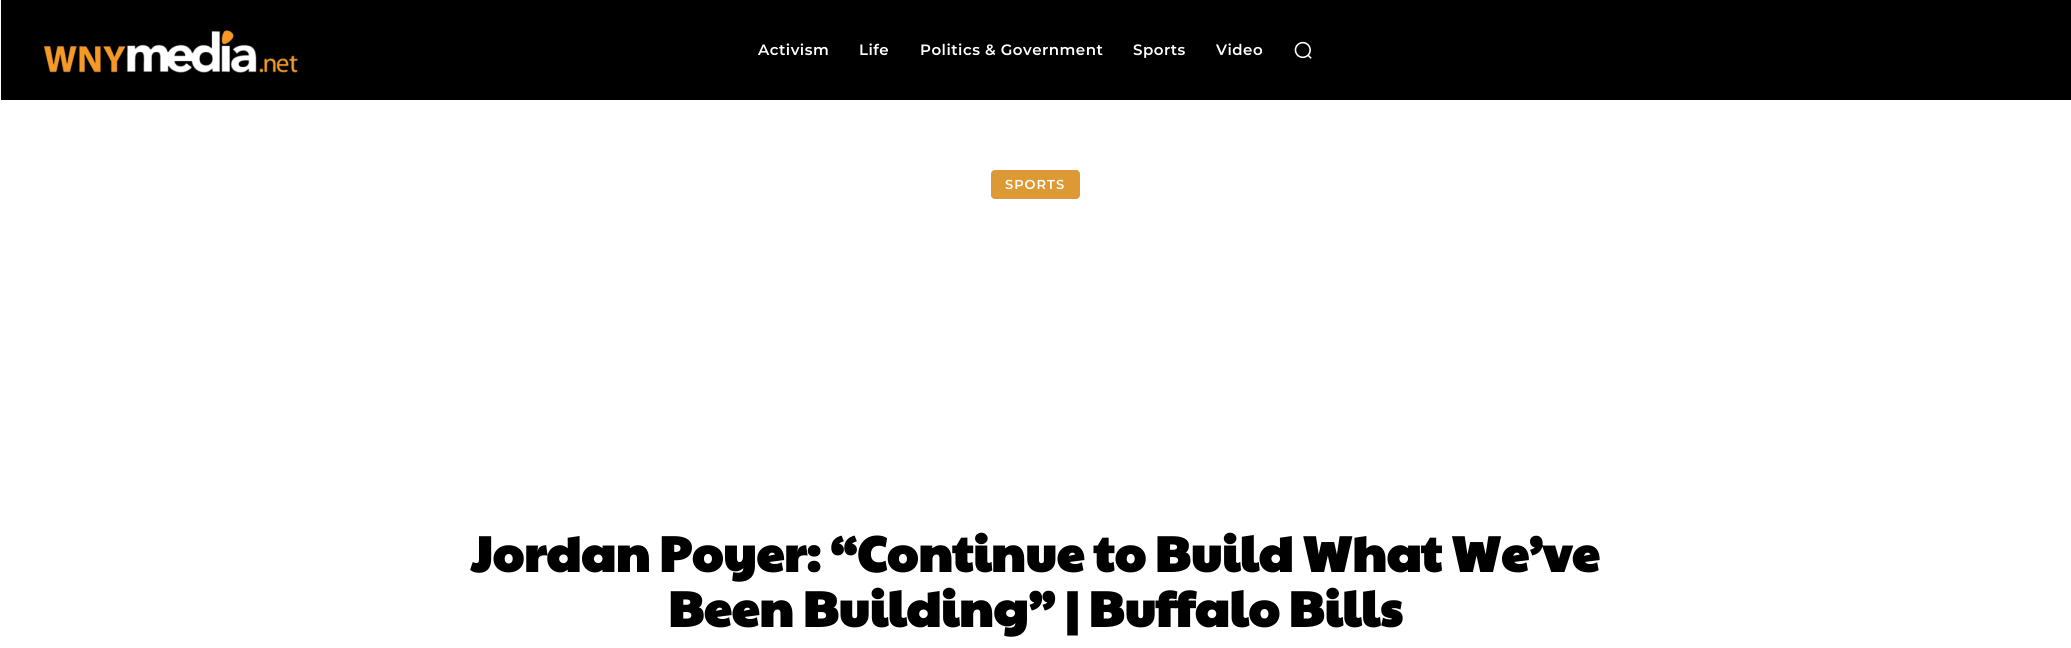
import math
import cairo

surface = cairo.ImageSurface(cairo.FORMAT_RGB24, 2071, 648)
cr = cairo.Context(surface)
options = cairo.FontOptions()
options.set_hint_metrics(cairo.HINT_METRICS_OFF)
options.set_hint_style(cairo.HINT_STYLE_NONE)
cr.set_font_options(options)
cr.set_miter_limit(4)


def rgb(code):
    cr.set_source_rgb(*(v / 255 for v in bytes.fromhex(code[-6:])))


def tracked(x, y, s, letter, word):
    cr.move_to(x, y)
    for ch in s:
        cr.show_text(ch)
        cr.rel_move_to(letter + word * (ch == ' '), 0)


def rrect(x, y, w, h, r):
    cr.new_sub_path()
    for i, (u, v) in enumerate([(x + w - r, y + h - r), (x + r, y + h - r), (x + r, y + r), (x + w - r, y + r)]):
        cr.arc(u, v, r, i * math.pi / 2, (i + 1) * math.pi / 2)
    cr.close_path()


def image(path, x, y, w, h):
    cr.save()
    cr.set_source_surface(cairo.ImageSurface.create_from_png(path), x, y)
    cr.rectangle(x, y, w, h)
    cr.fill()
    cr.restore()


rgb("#ffffff")
cr.paint()
rgb("#000000")
cr.rectangle(1, 0, 2070, 100)
cr.fill()
image("img/1.png", 43, 30, 255, 43)
image("img/2.png", 1294, 41, 18, 18)
rgb("#dd9933")
rrect(991, 170, 89, 29, 4)
cr.fill()
cr.select_font_face("Montserrat SemiBold")
cr.set_font_size(15)
rgb("#ffffff")
for x, y, s in [
    (758, 55, "Activism"),
    (859, 55, "Life"),
    (920, 55, "Politics & Government"),
    (1133, 55, "Sports"),
    (1216, 55, "Video"),
]:
    tracked(x, y, s, 0.5, 0)
cr.set_font_size(13)
tracked(1005, 189, "SPORTS", 1, 0)
cr.select_font_face("Paytone One", cairo.FONT_SLANT_NORMAL, cairo.FONT_WEIGHT_BOLD)
cr.set_font_size(50)
rgb("#000000")
cr.move_to(471, 572)
cr.show_text("Jordan Poyer: “Continue to Build What We’ve")
cr.move_to(668, 627)
cr.show_text("Been Building” | Buffalo Bills")
surface.write_to_png("page.png")
